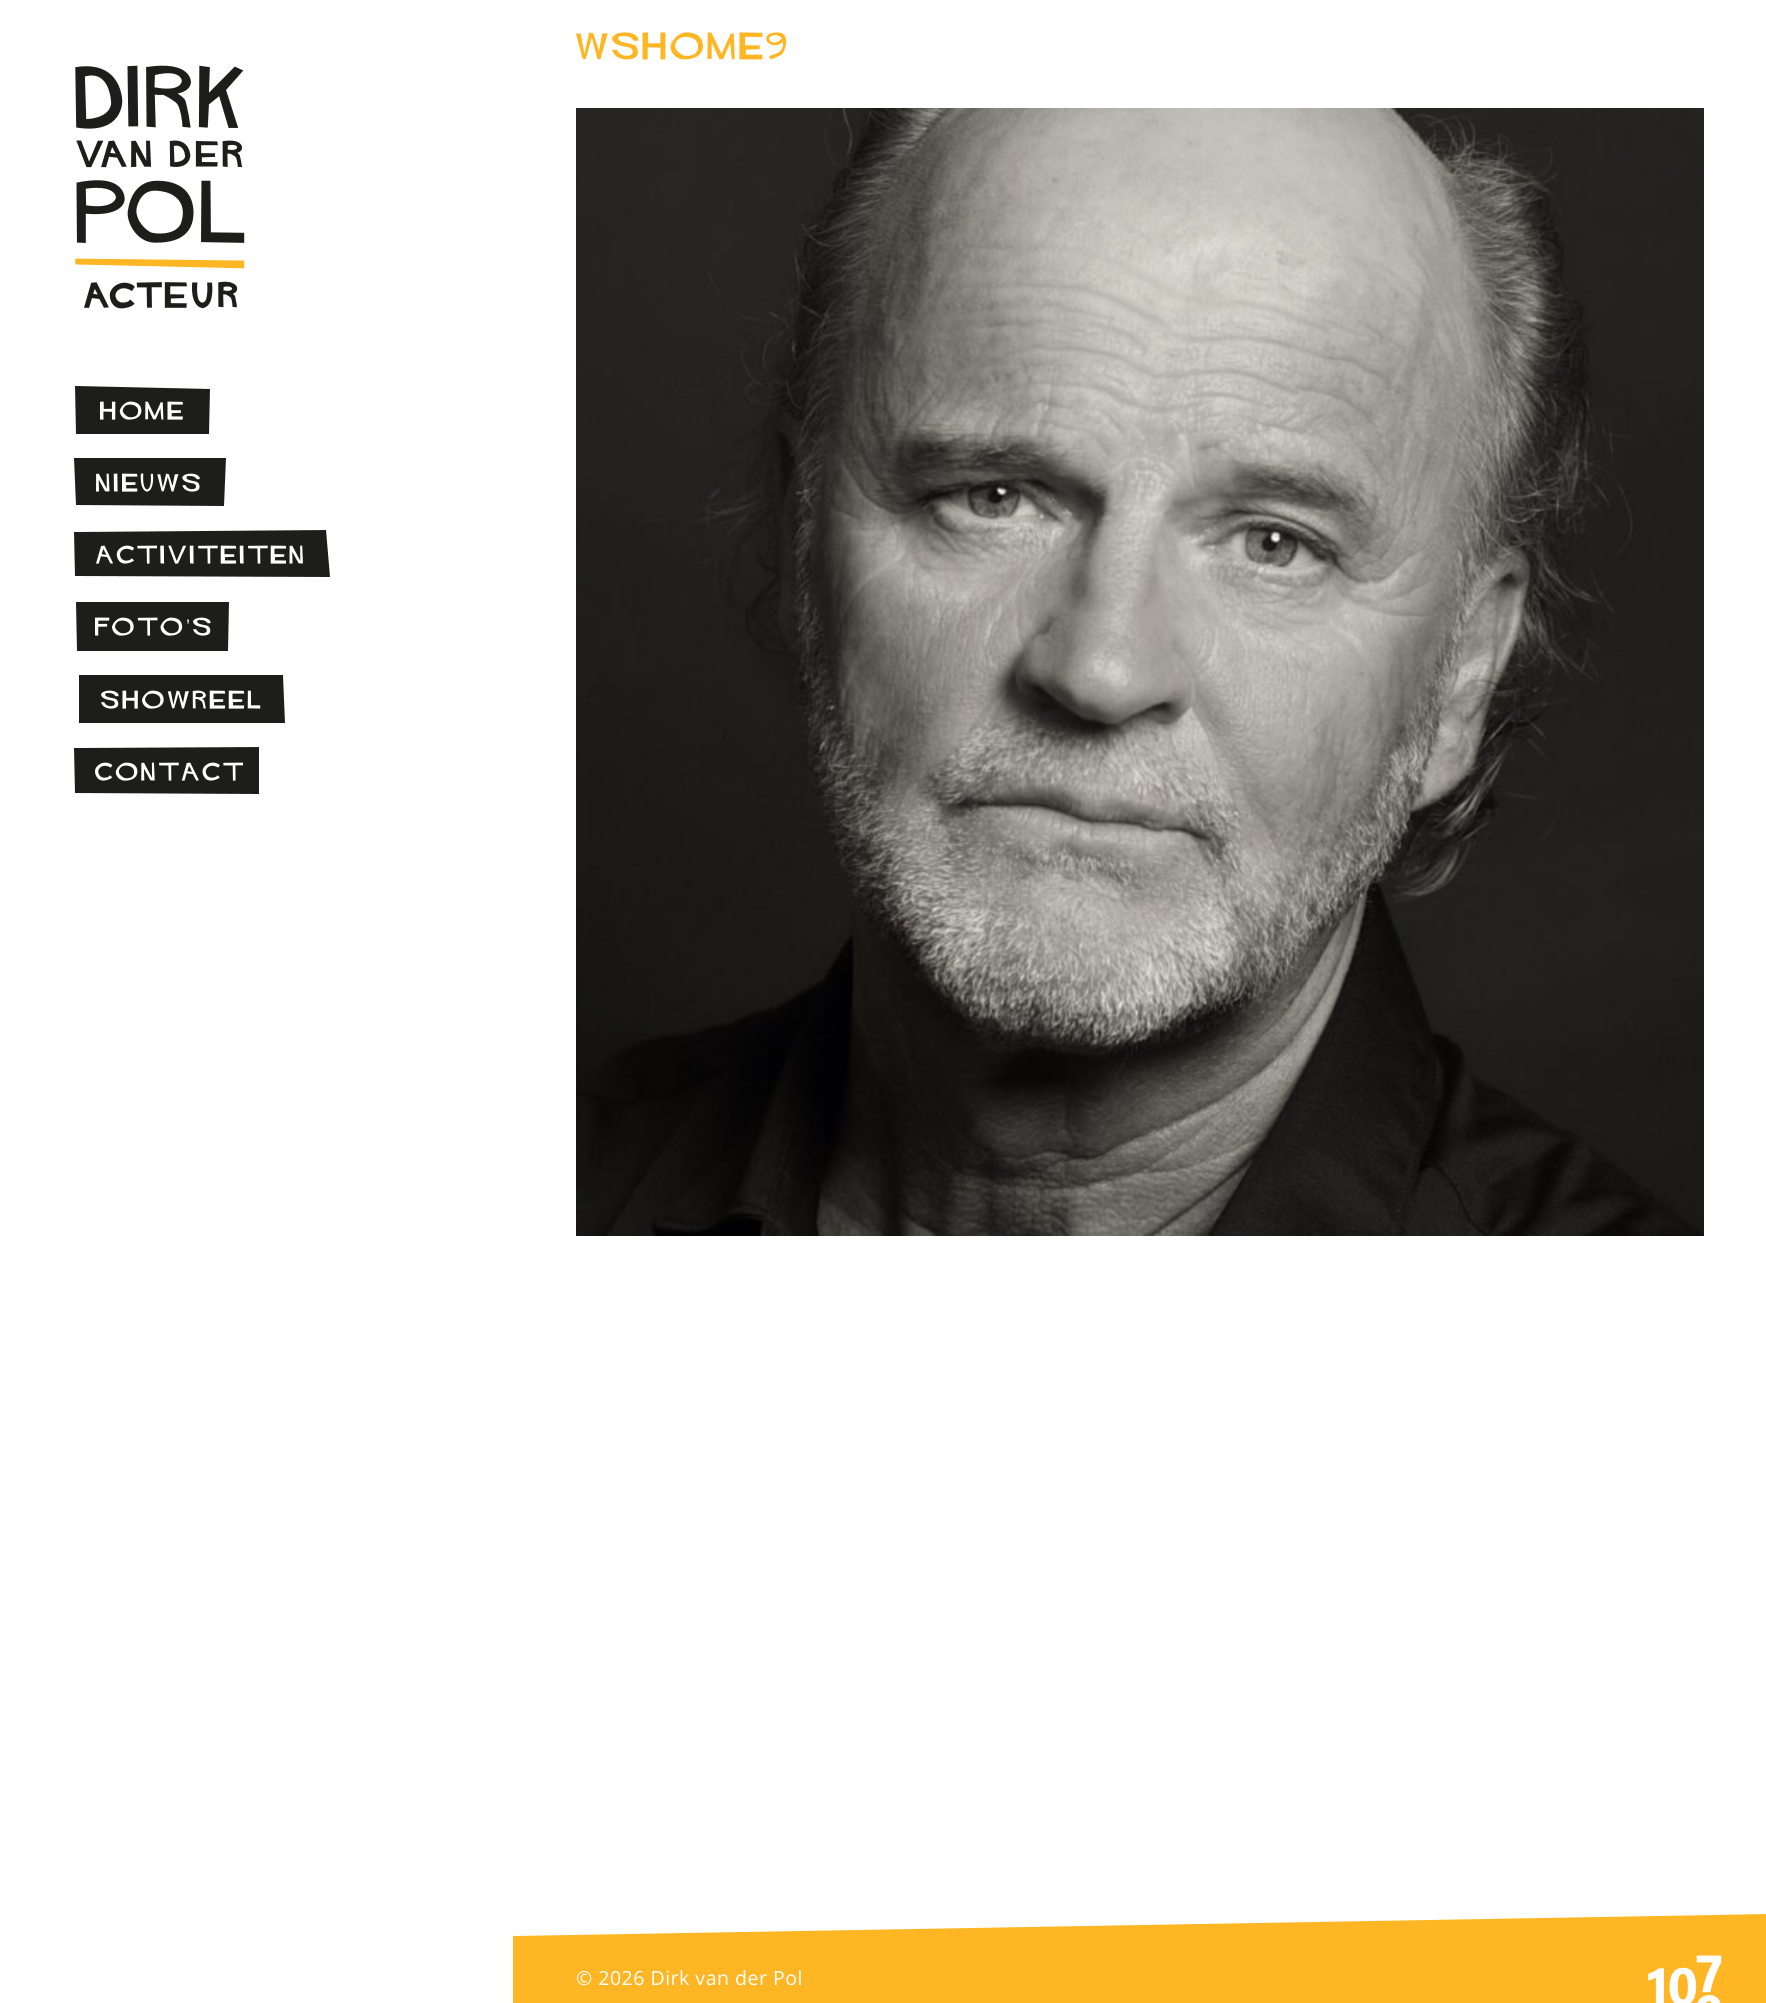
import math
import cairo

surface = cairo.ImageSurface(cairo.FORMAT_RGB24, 1766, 2003)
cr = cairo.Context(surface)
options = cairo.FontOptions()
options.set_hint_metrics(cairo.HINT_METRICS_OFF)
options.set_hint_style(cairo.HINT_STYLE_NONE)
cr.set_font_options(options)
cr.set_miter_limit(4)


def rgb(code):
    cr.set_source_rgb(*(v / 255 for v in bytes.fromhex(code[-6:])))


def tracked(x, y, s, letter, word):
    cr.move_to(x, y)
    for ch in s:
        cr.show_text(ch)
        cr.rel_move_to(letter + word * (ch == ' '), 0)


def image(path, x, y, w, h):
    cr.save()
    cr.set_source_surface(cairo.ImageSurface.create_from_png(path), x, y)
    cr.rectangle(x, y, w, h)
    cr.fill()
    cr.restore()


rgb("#ffffff")
cr.paint()
image("img/1.png", 576, 108, 1128, 1128)
image("img/2.png", 75, 65, 170, 244)
rgb("#1d1d1b")
cr.new_path()
cr.move_to(210, 389)
cr.line_to(75, 386)
cr.line_to(76, 434)
cr.line_to(209, 434)
cr.close_path()
cr.fill()
cr.new_path()
cr.move_to(224, 506)
cr.line_to(226, 458)
cr.line_to(74, 458)
cr.line_to(76, 505)
cr.close_path()
cr.fill()
cr.new_path()
cr.move_to(330, 577)
cr.line_to(326, 530)
cr.line_to(74, 532)
cr.line_to(75, 576)
cr.close_path()
cr.fill()
cr.new_path()
cr.move_to(229, 602)
cr.line_to(76, 602)
cr.line_to(77, 651)
cr.line_to(228, 651)
cr.close_path()
cr.fill()
cr.new_path()
cr.move_to(283, 675)
cr.line_to(79, 675)
cr.line_to(79, 723)
cr.line_to(285, 723)
cr.close_path()
cr.fill()
cr.new_path()
cr.move_to(74, 748)
cr.line_to(75, 793)
cr.line_to(259, 794)
cr.line_to(259, 747)
cr.close_path()
cr.fill()
rgb("#ffb624")
cr.rectangle(513, 1944, 1253, 59)
cr.fill()
cr.new_path()
cr.move_to(513, 1936)
cr.line_to(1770, 1914)
cr.line_to(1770, 1944)
cr.line_to(513, 1966)
cr.close_path()
cr.fill()
image("img/3.png", 1648, 1955, 74, 48)
cr.select_font_face("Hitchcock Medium")
cr.set_font_size(27)
tracked(576, 54, "WShome9", 3, 0)
cr.set_font_size(18)
rgb("#ffffff")
for x, y, s in [
    (100, 416, "Home"),
    (96, 488, "Nieuws"),
    (96, 560, "Activiteiten"),
    (95, 632, "Foto"),
]:
    tracked(x, y, s, 3, 0)
cr.select_font_face("Liberation Sans")
tracked(186, 632, "’", 3, 0)
cr.select_font_face("Hitchcock Medium")
for x, y, s in [
    (193, 632, "s"),
    (101, 705, "Showreel"),
    (95, 777, "Contact"),
]:
    tracked(x, y, s, 3, 0)
cr.select_font_face("Open Sans")
cr.set_font_size(19.5)
tracked(576, 1985, "© 2026 Dirk van der Pol", 0.5, 0)
surface.write_to_png("page.png")
